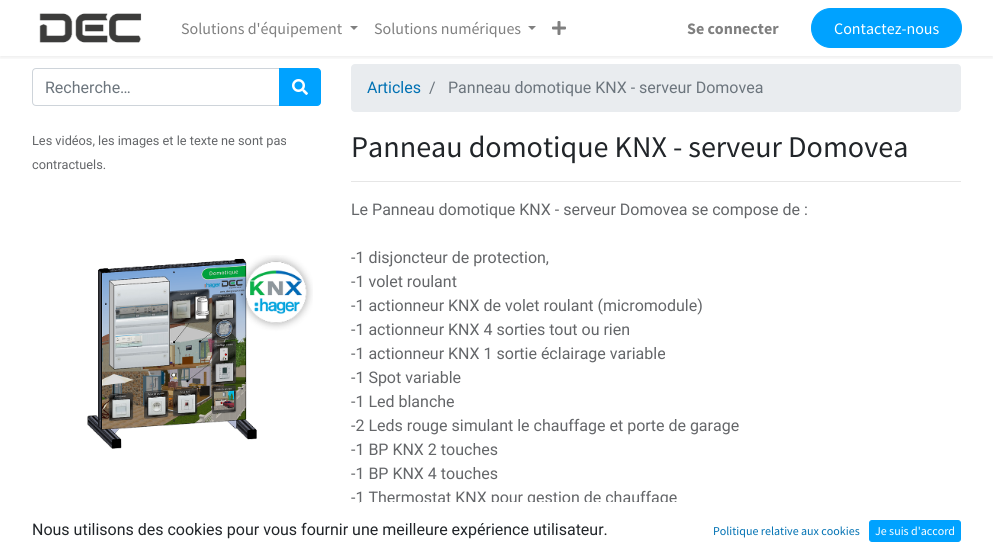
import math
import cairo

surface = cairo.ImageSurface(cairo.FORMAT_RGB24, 993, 558)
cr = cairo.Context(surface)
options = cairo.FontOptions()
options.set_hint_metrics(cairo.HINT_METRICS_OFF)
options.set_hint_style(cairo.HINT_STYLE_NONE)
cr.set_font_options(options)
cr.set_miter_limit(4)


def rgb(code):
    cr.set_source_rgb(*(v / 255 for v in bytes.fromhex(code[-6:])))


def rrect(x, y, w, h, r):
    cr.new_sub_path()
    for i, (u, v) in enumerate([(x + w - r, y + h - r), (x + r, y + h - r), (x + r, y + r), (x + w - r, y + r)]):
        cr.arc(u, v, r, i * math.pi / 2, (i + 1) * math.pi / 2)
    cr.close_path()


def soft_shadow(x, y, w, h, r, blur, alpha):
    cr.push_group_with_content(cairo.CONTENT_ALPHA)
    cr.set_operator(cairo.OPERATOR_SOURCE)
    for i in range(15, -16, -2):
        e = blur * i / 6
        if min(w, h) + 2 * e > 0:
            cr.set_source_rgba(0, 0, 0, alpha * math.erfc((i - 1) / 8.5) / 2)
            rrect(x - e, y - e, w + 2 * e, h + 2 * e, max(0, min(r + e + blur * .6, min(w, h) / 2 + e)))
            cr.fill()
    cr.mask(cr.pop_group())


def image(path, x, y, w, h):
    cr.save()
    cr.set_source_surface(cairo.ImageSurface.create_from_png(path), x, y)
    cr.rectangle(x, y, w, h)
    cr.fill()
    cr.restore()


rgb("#ffffff")
cr.paint()
rgb("#e9ecef")
rrect(351, 64, 610, 48, 4)
cr.fill()
cr.save()
cr.rectangle(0, 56, 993, 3)
cr.clip()
rgb("#000000")
soft_shadow(0, 2, 993, 56, 0, 2, 0.07)
cr.restore()
image("img/1.png", 39, 13, 103, 30)
rgb("#808080")
cr.new_path()
cr.move_to(350, 26)
cr.line_to(358, 26)
cr.line_to(354, 30)
cr.close_path()
cr.fill()
cr.new_path()
cr.move_to(528, 26)
cr.line_to(536, 26)
cr.line_to(532, 30)
cr.close_path()
cr.fill()
image("img/2.png", 552, 21, 14, 14)
rgb("#00a2ff")
rrect(811.5, 8.5, 150, 39, 19.5)
cr.fill_preserve()
cr.set_line_width(1)
cr.stroke()
cr.new_path()
cr.move_to(36, 68.5)
cr.line_to(279.5, 68.5)
cr.line_to(279.5, 105.5)
cr.line_to(36, 105.5)
cr.curve_to(34, 105.5, 32.5, 104, 32.5, 102)
cr.line_to(32.5, 72)
cr.curve_to(32.5, 70, 34, 68.5, 36, 68.5)
cr.close_path()
rgb("#ced4da")
cr.stroke()
rgb("#00a2ff")
cr.new_path()
cr.move_to(279.5, 68.5)
cr.line_to(317, 68.5)
cr.curve_to(319, 68.5, 320.5, 70, 320.5, 72)
cr.line_to(320.5, 102)
cr.curve_to(320.5, 104, 319, 105.5, 317, 105.5)
cr.line_to(279.5, 105.5)
cr.close_path()
cr.fill_preserve()
cr.stroke()
image("img/3.png", 292, 79, 16, 16)
image("img/4.png", 87, 255, 226, 194)
rgb("#e6e6e6")
cr.rectangle(351, 181, 610, 1)
cr.fill()
rgb("#00a2ff")
rrect(869.5, 520.5, 91, 21, 2.5)
cr.fill_preserve()
cr.stroke()
cr.select_font_face("Source Sans Pro")
cr.set_font_size(16)
rgb("#808080")
cr.move_to(181, 34)
cr.show_text("Solutions d'équipement")
cr.move_to(374, 34)
cr.show_text("Solutions numériques")
cr.select_font_face("Source Sans Pro", cairo.FONT_SLANT_NORMAL, cairo.FONT_WEIGHT_BOLD)
cr.move_to(687, 34)
cr.show_text("Se connecter")
cr.select_font_face("Source Sans Pro")
rgb("#ffffff")
cr.move_to(834, 34)
cr.show_text("Contactez-nous")
cr.select_font_face("Roboto")
rgb("#6c757d")
cr.move_to(45, 93)
cr.show_text("Recherche…")
rgb("#0071b3")
cr.move_to(367, 93)
cr.show_text("Articles")
rgb("#6c757d")
cr.move_to(429, 93)
cr.show_text("/")
cr.move_to(448, 93)
cr.show_text("Panneau domotique KNX - serveur Domovea")
cr.set_font_size(12.75)
rgb("#646669")
cr.move_to(32, 145)
cr.show_text("Les vidéos, les images et le texte ne sont pas")
cr.move_to(32, 169)
cr.show_text("contractuels.")
cr.select_font_face("Source Sans Pro")
cr.set_font_size(30.1)
rgb("#212529")
cr.move_to(351, 157)
cr.show_text("Panneau domotique KNX - serveur Domovea")
cr.select_font_face("Roboto")
cr.set_font_size(16)
rgb("#646669")
for x, y, s in [
    (351, 215, "Le Panneau domotique KNX - serveur Domovea se compose de :"),
    (351, 263, "-1 disjoncteur de protection,"),
    (351, 287, "-1 volet roulant"),
    (351, 311, "-1 actionneur KNX de volet roulant (micromodule)"),
    (351, 335, "-1 actionneur KNX 4 sorties tout ou rien"),
    (351, 359, "-1 actionneur KNX 1 sortie éclairage variable"),
    (351, 383, "-1 Spot variable"),
    (351, 407, "-1 Led blanche"),
    (351, 431, "-2 Leds rouge simulant le chauffage et porte de garage"),
    (351, 455, "-1 BP KNX 2 touches"),
    (351, 479, "-1 BP KNX 4 touches"),
    (351, 503, "-1 Thermostat KNX pour gestion de chauffage"),
]:
    cr.move_to(x, y)
    cr.show_text(s)
rgb("#ffffff")
cr.rectangle(360, 502, 317, 5)
cr.fill()
rgb("#212529")
cr.move_to(32, 535)
cr.show_text("Nous utilisons des cookies pour vous fournir une meilleure expérience utilisateur.")
cr.select_font_face("Source Sans Pro")
cr.set_font_size(12)
rgb("#0071b3")
cr.move_to(713, 535)
cr.show_text("Politique relative aux cookies")
rgb("#ffffff")
cr.move_to(875, 535)
cr.show_text("Je suis d'accord")
surface.write_to_png("page.png")
